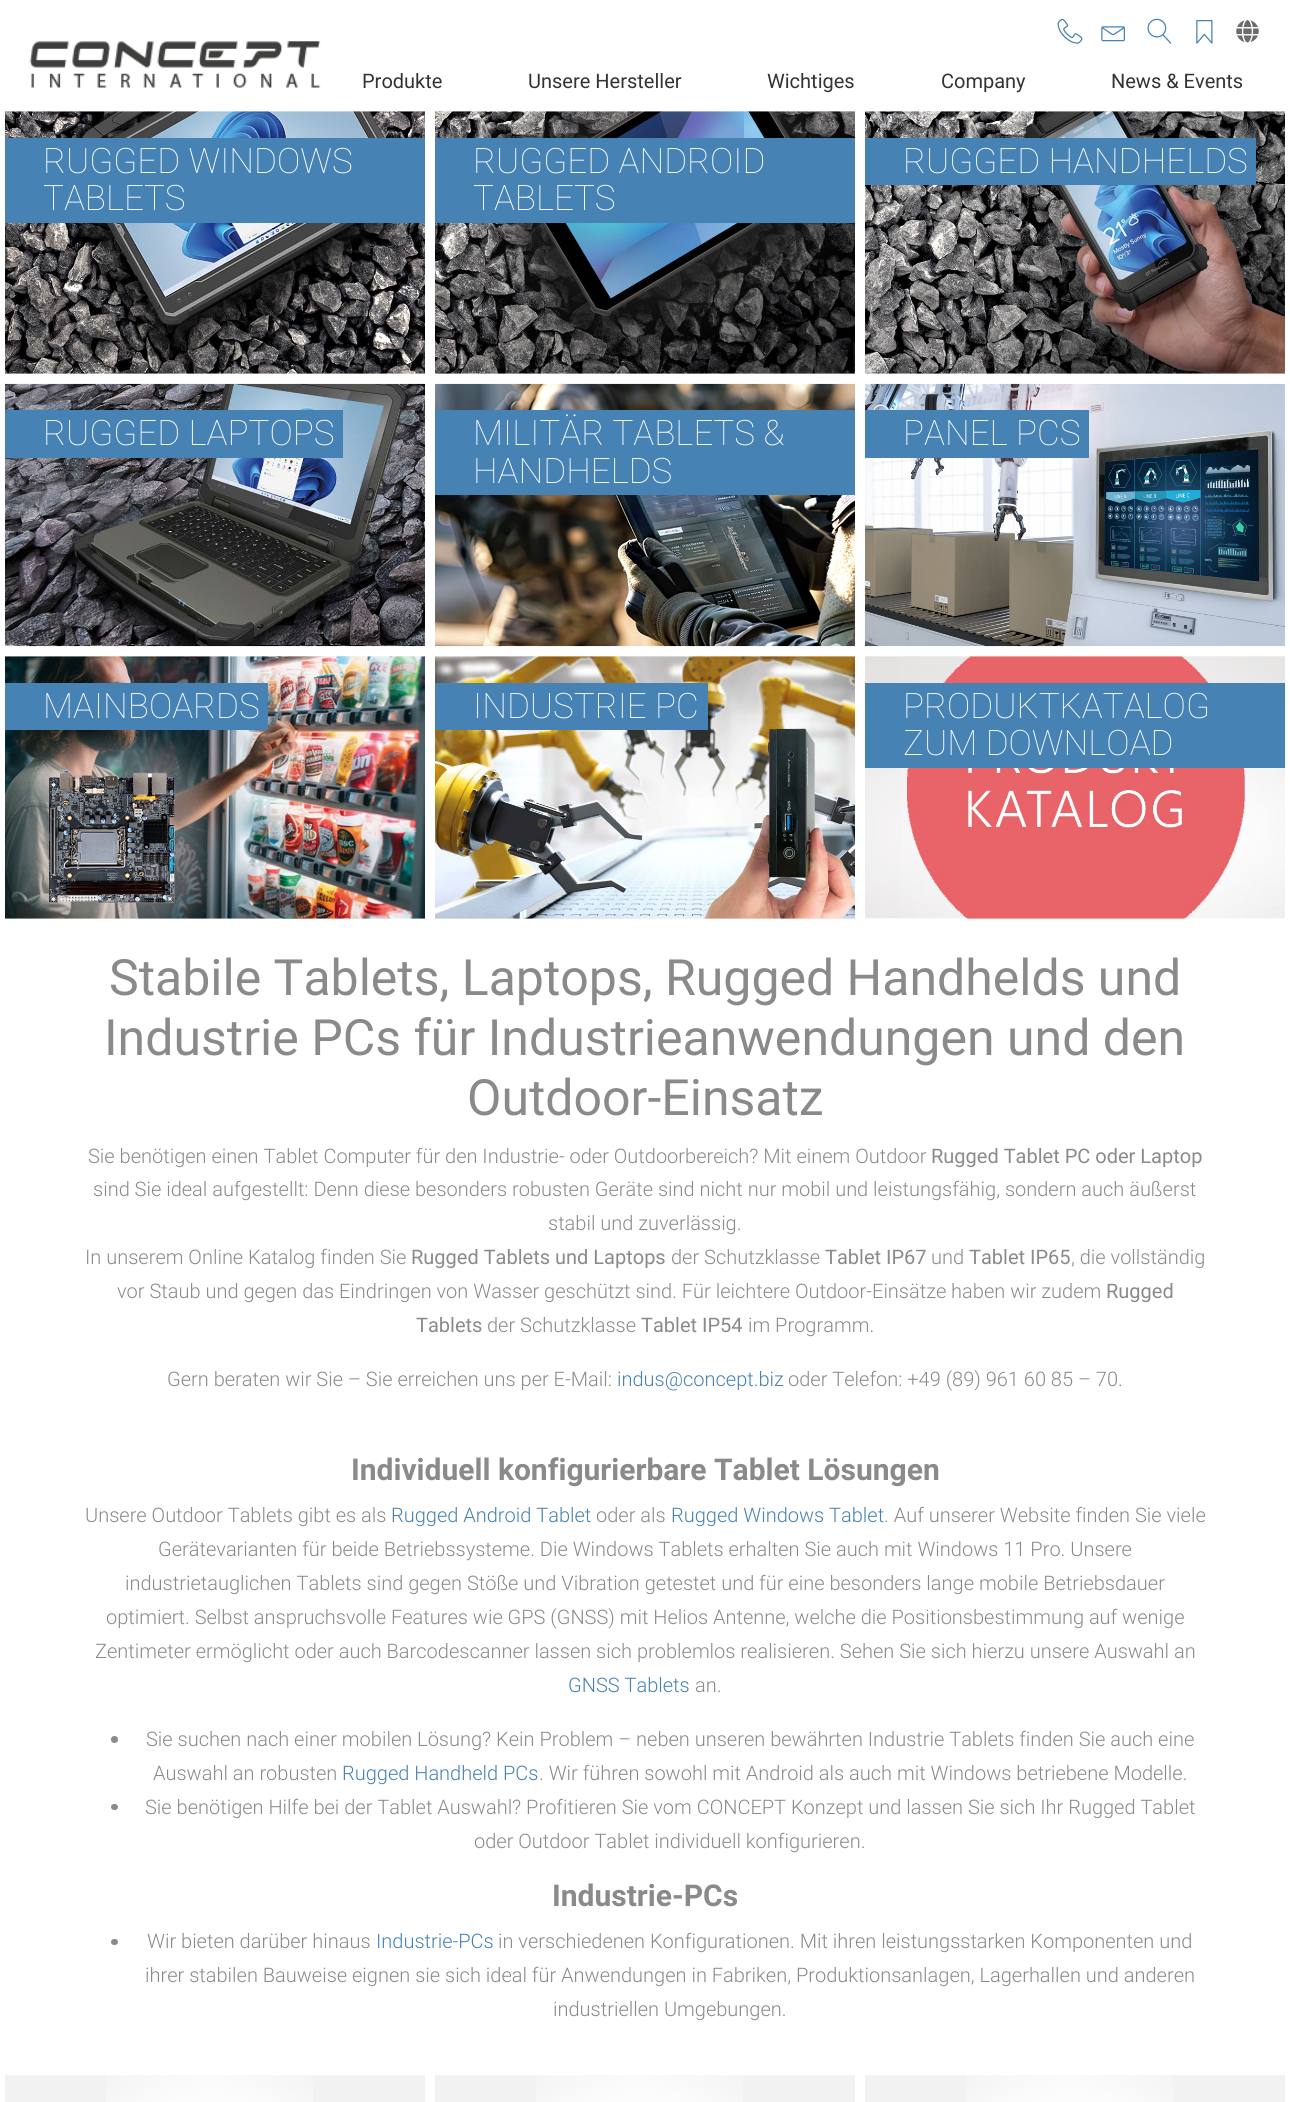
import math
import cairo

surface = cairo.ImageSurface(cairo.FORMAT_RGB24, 1290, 2102)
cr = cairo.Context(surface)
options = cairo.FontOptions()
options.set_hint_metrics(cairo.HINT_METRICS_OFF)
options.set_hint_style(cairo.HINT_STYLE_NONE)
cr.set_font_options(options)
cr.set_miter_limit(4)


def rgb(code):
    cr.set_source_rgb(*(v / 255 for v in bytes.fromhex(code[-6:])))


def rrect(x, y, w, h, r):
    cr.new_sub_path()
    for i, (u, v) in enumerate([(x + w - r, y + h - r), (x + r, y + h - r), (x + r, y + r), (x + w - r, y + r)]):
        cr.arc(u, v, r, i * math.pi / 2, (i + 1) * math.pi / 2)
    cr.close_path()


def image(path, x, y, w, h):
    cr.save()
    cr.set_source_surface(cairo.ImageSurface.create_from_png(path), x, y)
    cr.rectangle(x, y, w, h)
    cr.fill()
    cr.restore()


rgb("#ffffff")
cr.paint()
image("img/1.png", 29, 41, 292, 47)
image("img/2.png", 1057, 18, 26, 26)
image("img/3.png", 1101, 26, 24, 16)
image("img/4.png", 1147, 18, 25, 26)
image("img/5.png", 1196, 20, 17, 24)
image("img/6.png", 1236, 20, 23, 23)
rgb("#f5f5f5")
cr.rectangle(5, 111, 420, 263)
cr.fill()
image("img/7.png", 5, 111, 420, 263)
rgb("#4682b4")
cr.rectangle(5, 138, 420, 85)
cr.fill()
rgb("#f5f5f5")
cr.rectangle(435, 111, 420, 263)
cr.fill()
image("img/8.png", 435, 111, 420, 263)
rgb("#4682b4")
cr.rectangle(435, 138, 420, 85)
cr.fill()
rgb("#f5f5f5")
cr.rectangle(865, 111, 420, 263)
cr.fill()
image("img/9.png", 865, 111, 420, 263)
rgb("#4682b4")
cr.rectangle(865, 138, 391, 47)
cr.fill()
image("img/10.png", 5, 383, 420, 264)
cr.rectangle(5, 410, 338, 48)
cr.fill()
image("img/11.png", 435, 383, 420, 264)
cr.rectangle(435, 410, 420, 85)
cr.fill()
image("img/12.png", 865, 383, 420, 264)
cr.rectangle(865, 410, 224, 48)
cr.fill()
rgb("#f5f5f5")
cr.rectangle(5, 656, 420, 263)
cr.fill()
image("img/13.png", 5, 656, 420, 263)
rgb("#4682b4")
cr.rectangle(5, 683, 263, 47)
cr.fill()
rgb("#f5f5f5")
cr.rectangle(435, 656, 420, 263)
cr.fill()
image("img/14.png", 435, 656, 420, 263)
rgb("#4682b4")
cr.rectangle(435, 683, 273, 47)
cr.fill()
rgb("#f5f5f5")
cr.rectangle(865, 656, 420, 263)
cr.fill()
image("img/15.png", 865, 656, 420, 263)
rgb("#4682b4")
cr.rectangle(865, 683, 420, 85)
cr.fill()
rgb("#8a8a8a")
cr.arc(114.5, 1739.5, 3.5, 0, 2 * math.pi)
cr.fill()
rrect(111, 1804, 7, 6, 3)
cr.fill()
rrect(111, 1939, 7, 6, 3)
cr.fill()
rgb("#f2f2f2")
cr.rectangle(5, 2075, 420, 27)
cr.fill()
image("img/16.png", 106, 2075, 207, 27)
cr.rectangle(435, 2075, 420, 27)
cr.fill()
image("img/16.png", 536, 2075, 207, 27)
cr.rectangle(865, 2075, 420, 27)
cr.fill()
image("img/16.png", 966, 2075, 207, 27)
cr.select_font_face("Roboto")
cr.set_font_size(20)
rgb("#333333")
for x, y, s in [
    (362, 88, "Produkte"),
    (528, 88, "Unsere Hersteller"),
    (767, 88, "Wichtiges"),
    (941, 88, "Company"),
    (1111, 88, "News & Events"),
]:
    cr.move_to(x, y)
    cr.show_text(s)
cr.select_font_face("Roboto Thin")
cr.set_font_size(35)
rgb("#ffffff")
for x, y, s in [
    (43, 173, "RUGGED WINDOWS"),
    (43, 210, "TABLETS"),
    (473, 173, "RUGGED ANDROID"),
    (473, 210, "TABLETS"),
    (903, 173, "RUGGED HANDHELDS"),
    (43, 445, "RUGGED LAPTOPS"),
    (473, 445, "MILITÄR TABLETS &"),
    (473, 483, "HANDHELDS"),
    (903, 445, "PANEL PCS"),
    (43, 718, "MAINBOARDS"),
    (473, 718, "INDUSTRIE PC"),
    (903, 718, "PRODUKTKATALOG"),
    (903, 755, "ZUM DOWNLOAD"),
]:
    cr.move_to(x, y)
    cr.show_text(s)
cr.select_font_face("Roboto")
cr.set_font_size(50)
rgb("#8a8a8a")
for x, y, s in [
    (109, 995, "Stabile Tablets, Laptops, Rugged Handhelds und"),
    (104, 1055, "Industrie PCs für Industrieanwendungen und den"),
    (467, 1115, "Outdoor-Einsatz"),
]:
    cr.move_to(x, y)
    cr.show_text(s)
cr.select_font_face("Roboto Light")
cr.set_font_size(20)
cr.move_to(88, 1163)
cr.show_text("Sie benötigen einen Tablet Computer für den Industrie- oder Outdoorbereich? Mit einem Outdoor")
cr.select_font_face("Roboto")
cr.move_to(931, 1163)
cr.show_text("Rugged Tablet PC oder Laptop")
cr.select_font_face("Roboto Light")
for x, y, s in [
    (93, 1196, "sind Sie ideal aufgestellt: Denn diese besonders robusten Geräte sind nicht nur mobil und leistungsfähig, sondern auch äußerst"),
    (548, 1230, "stabil und zuverlässig."),
    (85, 1264, "In unserem Online Katalog finden Sie"),
]:
    cr.move_to(x, y)
    cr.show_text(s)
cr.select_font_face("Roboto")
cr.move_to(411, 1264)
cr.show_text("Rugged Tablets und Laptops")
cr.select_font_face("Roboto Light")
cr.move_to(671, 1264)
cr.show_text("der Schutzklasse")
cr.select_font_face("Roboto")
cr.move_to(825, 1264)
cr.show_text("Tablet IP67")
cr.select_font_face("Roboto Light")
cr.move_to(931, 1264)
cr.show_text("und")
cr.select_font_face("Roboto")
cr.move_to(969, 1264)
cr.show_text("Tablet IP65")
cr.select_font_face("Roboto Light")
cr.move_to(1071, 1264)
cr.show_text(", die vollständig")
cr.move_to(117, 1298)
cr.show_text("vor Staub und gegen das Eindringen von Wasser geschützt sind. Für leichtere Outdoor-Einsätze haben wir zudem")
cr.select_font_face("Roboto")
cr.move_to(1106, 1298)
cr.show_text("Rugged")
cr.move_to(416, 1332)
cr.show_text("Tablets")
cr.select_font_face("Roboto Light")
cr.move_to(487, 1332)
cr.show_text("der Schutzklasse")
cr.select_font_face("Roboto")
cr.move_to(641, 1332)
cr.show_text("Tablet IP54")
cr.select_font_face("Roboto Light")
cr.move_to(748, 1332)
cr.show_text("im Programm.")
cr.move_to(167, 1386)
cr.show_text("Gern beraten wir Sie – Sie erreichen uns per E-Mail:")
rgb("#4682b4")
cr.move_to(617, 1386)
cr.show_text("indus@concept.biz")
rgb("#8a8a8a")
cr.move_to(788, 1386)
cr.show_text("oder Telefon: +49 (89) 961 60 85 – 70.")
cr.select_font_face("Roboto", cairo.FONT_SLANT_NORMAL, cairo.FONT_WEIGHT_BOLD)
cr.set_font_size(30)
cr.move_to(351, 1480)
cr.show_text("Individuell konfigurierbare Tablet Lösungen")
cr.select_font_face("Roboto Light")
cr.set_font_size(20)
cr.move_to(85, 1522)
cr.show_text("Unsere Outdoor Tablets gibt es als")
rgb("#4682b4")
cr.move_to(391, 1522)
cr.show_text("Rugged Android Tablet")
rgb("#8a8a8a")
cr.move_to(596, 1522)
cr.show_text("oder als")
rgb("#4682b4")
cr.move_to(671, 1522)
cr.show_text("Rugged Windows Tablet")
rgb("#8a8a8a")
for x, y, s in [
    (884, 1522, ". Auf unserer Website finden Sie viele"),
    (158, 1556, "Gerätevarianten für beide Betriebssysteme. Die Windows Tablets erhalten Sie auch mit Windows 11 Pro. Unsere"),
    (125, 1590, "industrietauglichen Tablets sind gegen Stöße und Vibration getestet und für eine besonders lange mobile Betriebsdauer"),
    (106, 1624, "optimiert. Selbst anspruchsvolle Features wie GPS (GNSS) mit Helios Antenne, welche die Positionsbestimmung auf wenige"),
    (95, 1658, "Zentimeter ermöglicht oder auch Barcodescanner lassen sich problemlos realisieren. Sehen Sie sich hierzu unsere Auswahl an"),
]:
    cr.move_to(x, y)
    cr.show_text(s)
rgb("#4682b4")
cr.move_to(568, 1692)
cr.show_text("GNSS Tablets")
rgb("#8a8a8a")
for x, y, s in [
    (695, 1692, "an."),
    (146, 1746, "Sie suchen nach einer mobilen Lösung? Kein Problem – neben unseren bewährten Industrie Tablets finden Sie auch eine"),
    (153, 1780, "Auswahl an robusten"),
]:
    cr.move_to(x, y)
    cr.show_text(s)
rgb("#4682b4")
cr.move_to(342, 1780)
cr.show_text("Rugged Handheld PCs")
rgb("#8a8a8a")
for x, y, s in [
    (539, 1780, ". Wir führen sowohl mit Android als auch mit Windows betriebene Modelle."),
    (145, 1814, "Sie benötigen Hilfe bei der Tablet Auswahl? Profitieren Sie vom CONCEPT Konzept und lassen Sie sich Ihr Rugged Tablet"),
    (474, 1848, "oder Outdoor Tablet individuell konfigurieren."),
]:
    cr.move_to(x, y)
    cr.show_text(s)
cr.select_font_face("Roboto", cairo.FONT_SLANT_NORMAL, cairo.FONT_WEIGHT_BOLD)
cr.set_font_size(30)
cr.move_to(552, 1906)
cr.show_text("Industrie-PCs")
cr.select_font_face("Roboto Light")
cr.set_font_size(20)
cr.move_to(147, 1948)
cr.show_text("Wir bieten darüber hinaus")
rgb("#4682b4")
cr.move_to(376, 1948)
cr.show_text("Industrie-PCs")
rgb("#8a8a8a")
for x, y, s in [
    (498, 1948, "in verschiedenen Konfigurationen. Mit ihren leistungsstarken Komponenten und"),
    (145, 1982, "ihrer stabilen Bauweise eignen sie sich ideal für Anwendungen in Fabriken, Produktionsanlagen, Lagerhallen und anderen"),
    (553, 2016, "industriellen Umgebungen."),
]:
    cr.move_to(x, y)
    cr.show_text(s)
surface.write_to_png("page.png")
